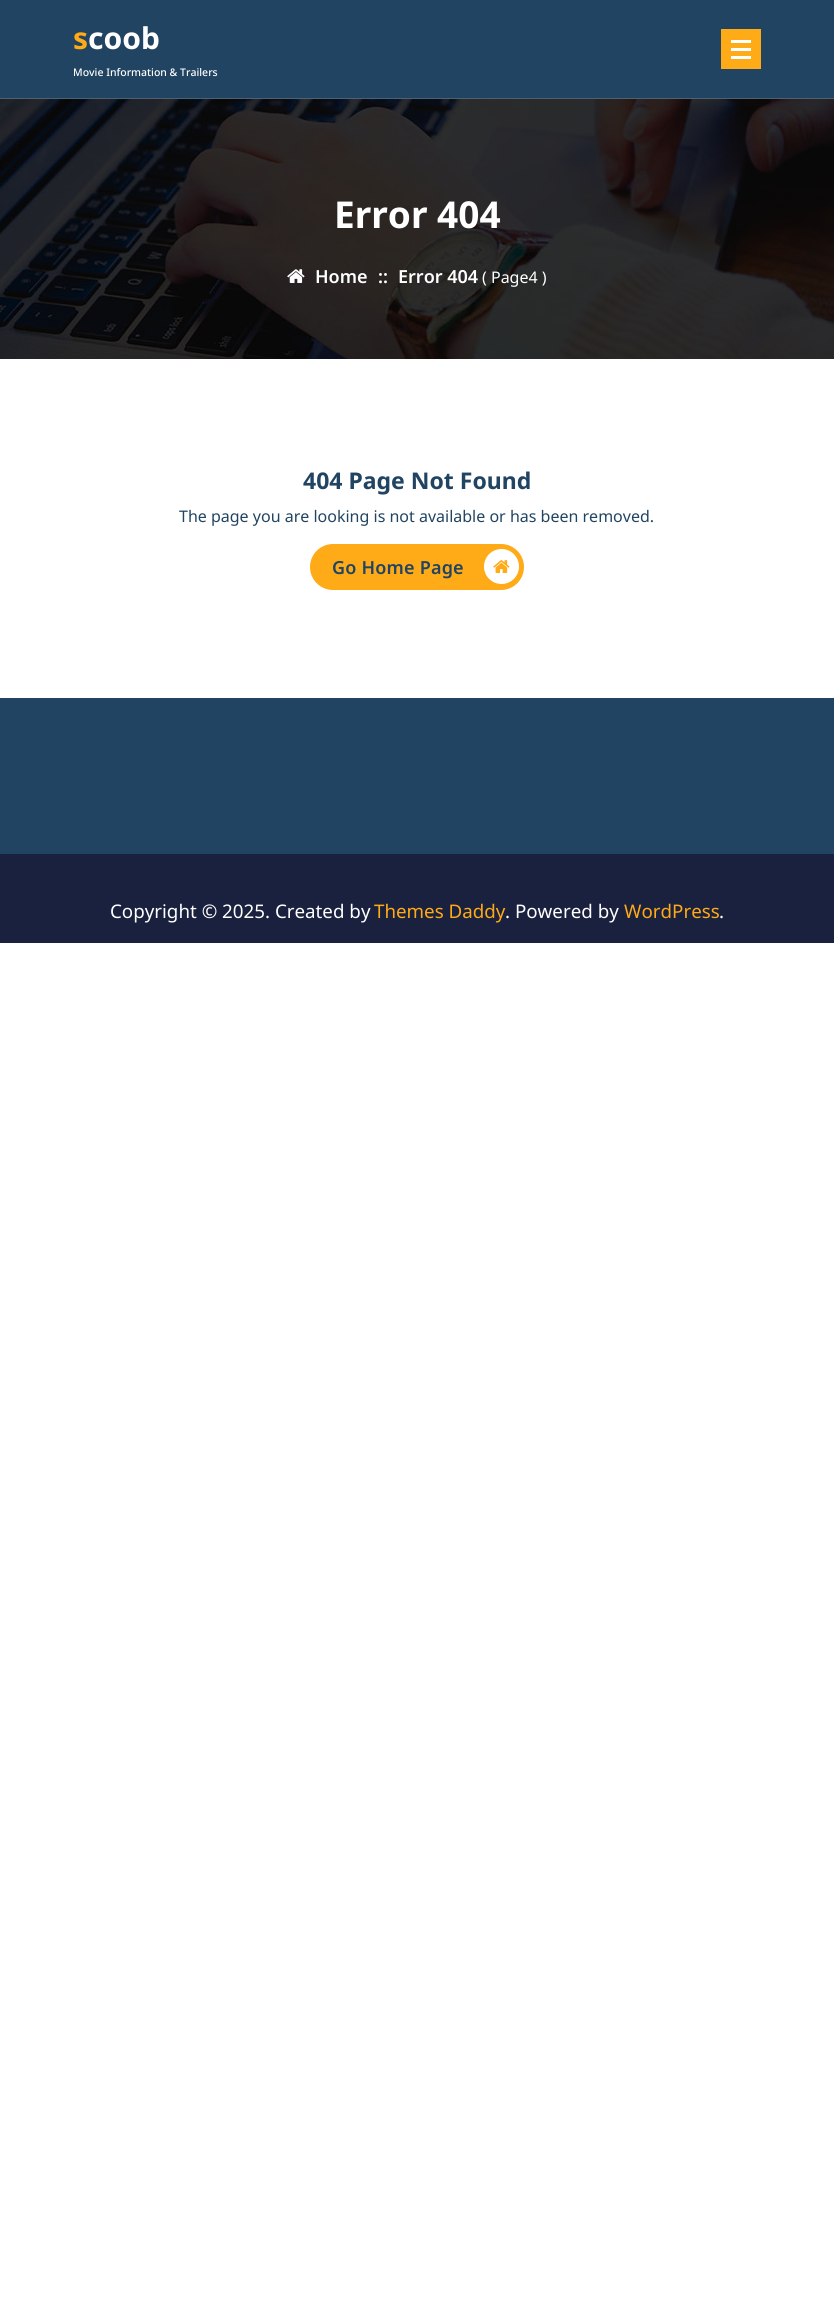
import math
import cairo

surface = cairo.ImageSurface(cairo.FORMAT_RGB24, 834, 2312)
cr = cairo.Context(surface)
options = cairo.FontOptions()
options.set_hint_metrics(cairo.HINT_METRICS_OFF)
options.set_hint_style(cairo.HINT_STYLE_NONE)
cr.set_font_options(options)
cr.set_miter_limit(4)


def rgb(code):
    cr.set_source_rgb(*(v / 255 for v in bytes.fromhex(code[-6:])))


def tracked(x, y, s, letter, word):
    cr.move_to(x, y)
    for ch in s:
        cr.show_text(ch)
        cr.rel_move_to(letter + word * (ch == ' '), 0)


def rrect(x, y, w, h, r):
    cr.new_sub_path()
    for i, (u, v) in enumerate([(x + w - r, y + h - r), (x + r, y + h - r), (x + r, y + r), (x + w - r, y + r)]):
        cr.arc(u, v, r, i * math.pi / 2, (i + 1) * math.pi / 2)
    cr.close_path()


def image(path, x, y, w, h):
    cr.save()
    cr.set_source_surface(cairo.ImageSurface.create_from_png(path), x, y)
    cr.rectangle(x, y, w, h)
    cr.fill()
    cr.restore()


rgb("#ffffff")
cr.paint()
for x, y, w, h, color in [
    (0, 0, 834, 98, "#214462"),
    (0, 98, 834, 1, "#4e6172"),
    (721, 29, 40, 40, "#ffaa17"),
    (731, 40, 20, 3, "#ffffff"),
    (731, 48, 20, 3, "#ffffff"),
    (731, 56, 20, 3, "#ffffff"),
]:
    rgb(color)
    cr.rectangle(x, y, w, h)
    cr.fill()
image("img/1.png", 0, 99, 834, 260)
image("img/2.png", 287, 269, 18, 14)
rgb("#ffaa17")
rrect(310, 544, 214, 46, 23)
cr.fill()
rgb("#ffffff")
cr.arc(501.5, 566.5, 17.5, 0, 2 * math.pi)
cr.fill()
image("img/3.png", 493, 560, 17, 13)
rgb("#214462")
cr.rectangle(0, 698, 834, 156)
cr.fill()
rgb("#1a213e")
cr.rectangle(0, 854, 834, 89)
cr.fill()
cr.select_font_face("Noto Sans", cairo.FONT_SLANT_NORMAL, cairo.FONT_WEIGHT_BOLD)
cr.set_font_size(30)
rgb("#ffaa17")
cr.move_to(73, 49)
cr.show_text("s")
rgb("#ffffff")
cr.move_to(88, 49)
cr.show_text("coob")
cr.select_font_face("Noto Sans Medium")
cr.set_font_size(10.5)
cr.move_to(73, 76)
cr.show_text("Movie Information & Trailers")
cr.select_font_face("Noto Sans", cairo.FONT_SLANT_NORMAL, cairo.FONT_WEIGHT_BOLD)
cr.set_font_size(37)
cr.move_to(334, 228)
cr.show_text("Error 404")
cr.select_font_face("Noto Sans SemiBold")
cr.set_font_size(18)
for x, y, s in [
    (315, 283, "Home"),
    (378, 283, "::"),
    (398, 283, "Error 404"),
]:
    cr.move_to(x, y)
    cr.show_text(s)
cr.select_font_face("Noto Sans")
cr.set_font_size(16)
cr.move_to(482, 283)
cr.show_text("( Page4 )")
cr.select_font_face("Noto Sans", cairo.FONT_SLANT_NORMAL, cairo.FONT_WEIGHT_BOLD)
cr.set_font_size(23)
rgb("#214462")
cr.move_to(303, 489)
cr.show_text("404 Page Not Found")
cr.select_font_face("Noto Sans")
cr.set_font_size(16)
cr.move_to(179, 522)
cr.show_text("The page you are looking is not available or has been removed.")
cr.select_font_face("Noto Sans SemiBold")
cr.set_font_size(18)
tracked(332, 574, "Go Home Page", 0.2, 0)
cr.select_font_face("Noto Sans")
cr.set_font_size(18.75)
rgb("#ffffff")
cr.move_to(110, 918)
cr.show_text("Copyright © 2025. Created by")
rgb("#ffaa17")
cr.move_to(374, 918)
cr.show_text("Themes Daddy")
rgb("#ffffff")
cr.move_to(505, 918)
cr.show_text(". Powered by")
rgb("#ffaa17")
cr.move_to(624, 918)
cr.show_text("WordPress")
rgb("#ffffff")
cr.move_to(719, 918)
cr.show_text(".")
surface.write_to_png("page.png")
